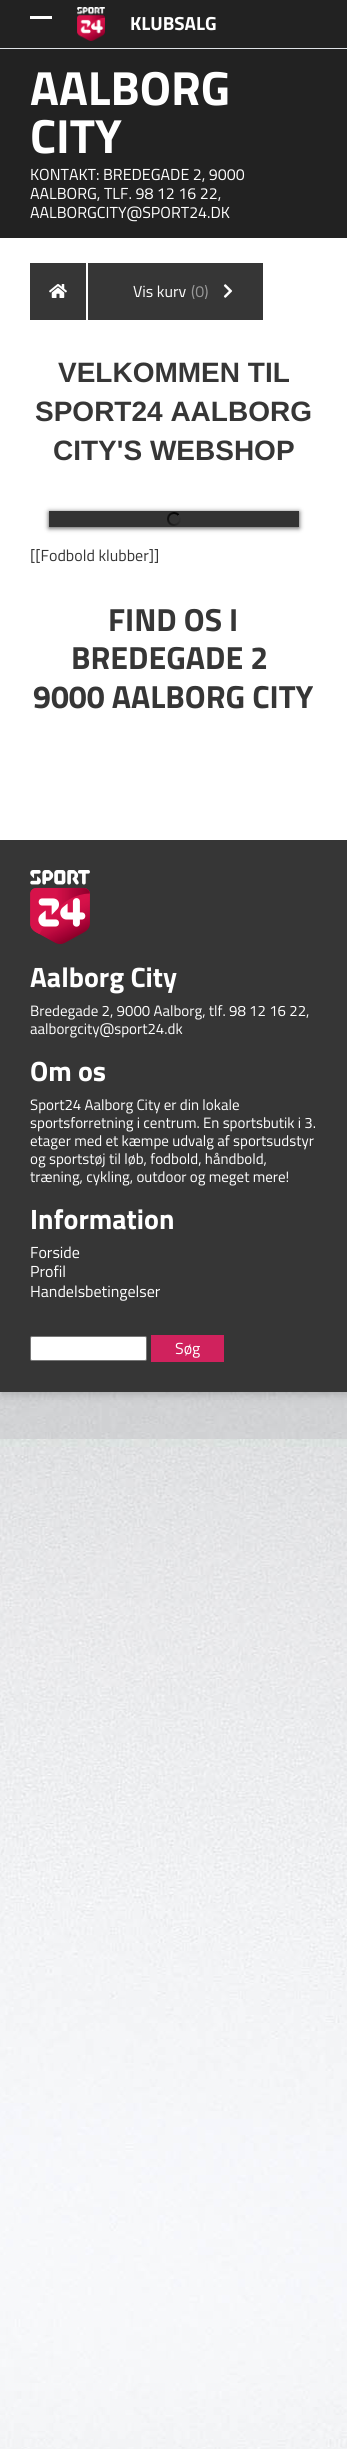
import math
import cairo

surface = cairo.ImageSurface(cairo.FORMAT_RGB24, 347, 2449)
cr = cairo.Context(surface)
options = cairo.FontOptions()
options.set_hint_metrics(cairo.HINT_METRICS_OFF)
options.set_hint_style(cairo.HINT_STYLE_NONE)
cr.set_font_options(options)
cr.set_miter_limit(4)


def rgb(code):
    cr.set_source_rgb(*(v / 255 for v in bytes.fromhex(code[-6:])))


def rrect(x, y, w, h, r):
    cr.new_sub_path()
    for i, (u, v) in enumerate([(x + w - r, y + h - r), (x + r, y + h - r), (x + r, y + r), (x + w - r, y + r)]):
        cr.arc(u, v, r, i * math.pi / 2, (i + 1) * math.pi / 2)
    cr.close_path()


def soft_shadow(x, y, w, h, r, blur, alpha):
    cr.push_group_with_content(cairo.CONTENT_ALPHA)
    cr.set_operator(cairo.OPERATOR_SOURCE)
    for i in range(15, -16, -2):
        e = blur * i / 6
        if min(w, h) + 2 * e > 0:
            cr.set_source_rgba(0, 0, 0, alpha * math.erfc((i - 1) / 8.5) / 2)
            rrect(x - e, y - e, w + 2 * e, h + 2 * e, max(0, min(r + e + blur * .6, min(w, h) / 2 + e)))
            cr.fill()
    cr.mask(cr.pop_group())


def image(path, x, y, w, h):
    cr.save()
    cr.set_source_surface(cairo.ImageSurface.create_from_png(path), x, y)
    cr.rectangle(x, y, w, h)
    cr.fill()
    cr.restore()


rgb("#ffffff")
cr.paint()
image("img/1.png", 0, 1392, 347, 1057)
rgb("#000000")
soft_shadow(2, 50, 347, 1344, 0, 5, 0.2)
rgb("#222222")
cr.rectangle(0, 0, 347, 48)
cr.fill()
rgb("#ffffff")
cr.rectangle(30, 16, 22, 3)
cr.fill()
image("img/2.png", 77, 7, 28, 34)
for x, y, w, h, color in [
    (0, 238, 347, 602, "#ffffff"),
    (0, 49, 347, 189, "#222222"),
    (0, 48, 347, 1, "#dee2e6"),
    (30, 263, 56, 57, "#363636"),
]:
    rgb(color)
    cr.rectangle(x, y, w, h)
    cr.fill()
image("img/3.png", 49, 284, 18, 14)
cr.rectangle(88, 263, 175, 57)
cr.fill()
image("img/4.png", 223, 284, 10, 14)
cr.save()
cr.set_fill_rule(cairo.FILL_RULE_EVEN_ODD)
cr.new_path()
cr.move_to(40, 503)
cr.line_to(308, 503)
cr.line_to(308, 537)
cr.line_to(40, 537)
cr.close_path()
cr.move_to(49, 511)
cr.line_to(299, 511)
cr.line_to(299, 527)
cr.line_to(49, 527)
cr.close_path()
cr.clip()
rgb("#4a4a4a")
soft_shadow(49, 512, 250, 16, 0, 2.5, 1)
cr.restore()
image("img/5.png", 167, 512, 14, 14)
cr.set_source_rgba(0, 0, 0, 0.8)
cr.rectangle(49, 511, 250, 16)
cr.fill()
rgb("#363636")
cr.rectangle(0, 840, 347, 552)
cr.fill()
image("img/6.png", 30, 870, 60, 74)
rgb("#ffffff")
rrect(30.5, 1336.5, 116, 24, 1.5)
cr.fill_preserve()
rgb("#767676")
cr.set_line_width(1)
cr.stroke()
rgb("#d0225d")
cr.rectangle(151, 1335, 73, 27)
cr.fill()
cr.select_font_face("Titillium Web", cairo.FONT_SLANT_NORMAL, cairo.FONT_WEIGHT_BOLD)
cr.set_font_size(19)
rgb("#ffffff")
cr.move_to(130, 30)
cr.show_text("KLUBSALG")
cr.set_font_size(48)
cr.move_to(30, 105)
cr.show_text("AALBORG")
cr.move_to(30, 153)
cr.show_text("CITY")
cr.select_font_face("Titillium Web")
cr.set_font_size(16)
for x, y, s in [
    (30, 180, "KONTAKT: BREDEGADE 2, 9000"),
    (30, 199, "AALBORG, TLF. 98 12 16 22,"),
    (30, 218, "AALBORGCITY@SPORT24.DK"),
    (133, 297, "Vis kurv"),
]:
    cr.move_to(x, y)
    cr.show_text(s)
rgb("#999999")
cr.move_to(191, 297)
cr.show_text("(0)")
cr.select_font_face("Liberation Sans", cairo.FONT_SLANT_NORMAL, cairo.FONT_WEIGHT_BOLD)
cr.set_font_size(28)
rgb("#363636")
for x, y, s in [
    (58, 382, "VELKOMMEN TIL"),
    (35, 421, "SPORT24 AALBORG"),
    (53, 460, "CITY'S WEBSHOP"),
]:
    cr.move_to(x, y)
    cr.show_text(s)
cr.select_font_face("Titillium Web")
cr.set_font_size(16)
cr.move_to(30, 561)
cr.show_text("[[Fodbold klubber]]")
cr.select_font_face("Titillium Web", cairo.FONT_SLANT_NORMAL, cairo.FONT_WEIGHT_BOLD)
cr.set_font_size(32)
for x, y, s in [
    (108, 631, "FIND OS I"),
    (71, 669, "BREDEGADE 2"),
    (33, 708, "9000 AALBORG CITY"),
]:
    cr.move_to(x, y)
    cr.show_text(s)
cr.set_font_size(28)
rgb("#ffffff")
cr.move_to(30, 987)
cr.show_text("Aalborg City")
cr.select_font_face("Titillium Web")
cr.set_font_size(15)
cr.move_to(30, 1016)
cr.show_text("Bredegade 2, 9000 Aalborg, tlf. 98 12 16 22,")
cr.move_to(30, 1034)
cr.show_text("aalborgcity@sport24.dk")
cr.select_font_face("Titillium Web", cairo.FONT_SLANT_NORMAL, cairo.FONT_WEIGHT_BOLD)
cr.set_font_size(28)
cr.move_to(30, 1081)
cr.show_text("Om os")
cr.select_font_face("Titillium Web")
cr.set_font_size(15)
for x, y, s in [
    (30, 1110, "Sport24 Aalborg City er din lokale"),
    (30, 1128, "sportsforretning i centrum. En sportsbutik i 3."),
    (30, 1146, "etager med et kæmpe udvalg af sportsudstyr"),
    (30, 1164, "og sportstøj til løb, fodbold, håndbold,"),
    (30, 1182, "træning, cykling, outdoor og meget mere!"),
]:
    cr.move_to(x, y)
    cr.show_text(s)
cr.select_font_face("Titillium Web", cairo.FONT_SLANT_NORMAL, cairo.FONT_WEIGHT_BOLD)
cr.set_font_size(28)
cr.move_to(30, 1229)
cr.show_text("Information")
cr.select_font_face("Titillium Web")
cr.set_font_size(16)
for x, y, s in [
    (30, 1258, "Forside"),
    (30, 1277, "Profil"),
    (30, 1297, "Handelsbetingelser"),
    (175, 1354, "Søg"),
]:
    cr.move_to(x, y)
    cr.show_text(s)
surface.write_to_png("page.png")
